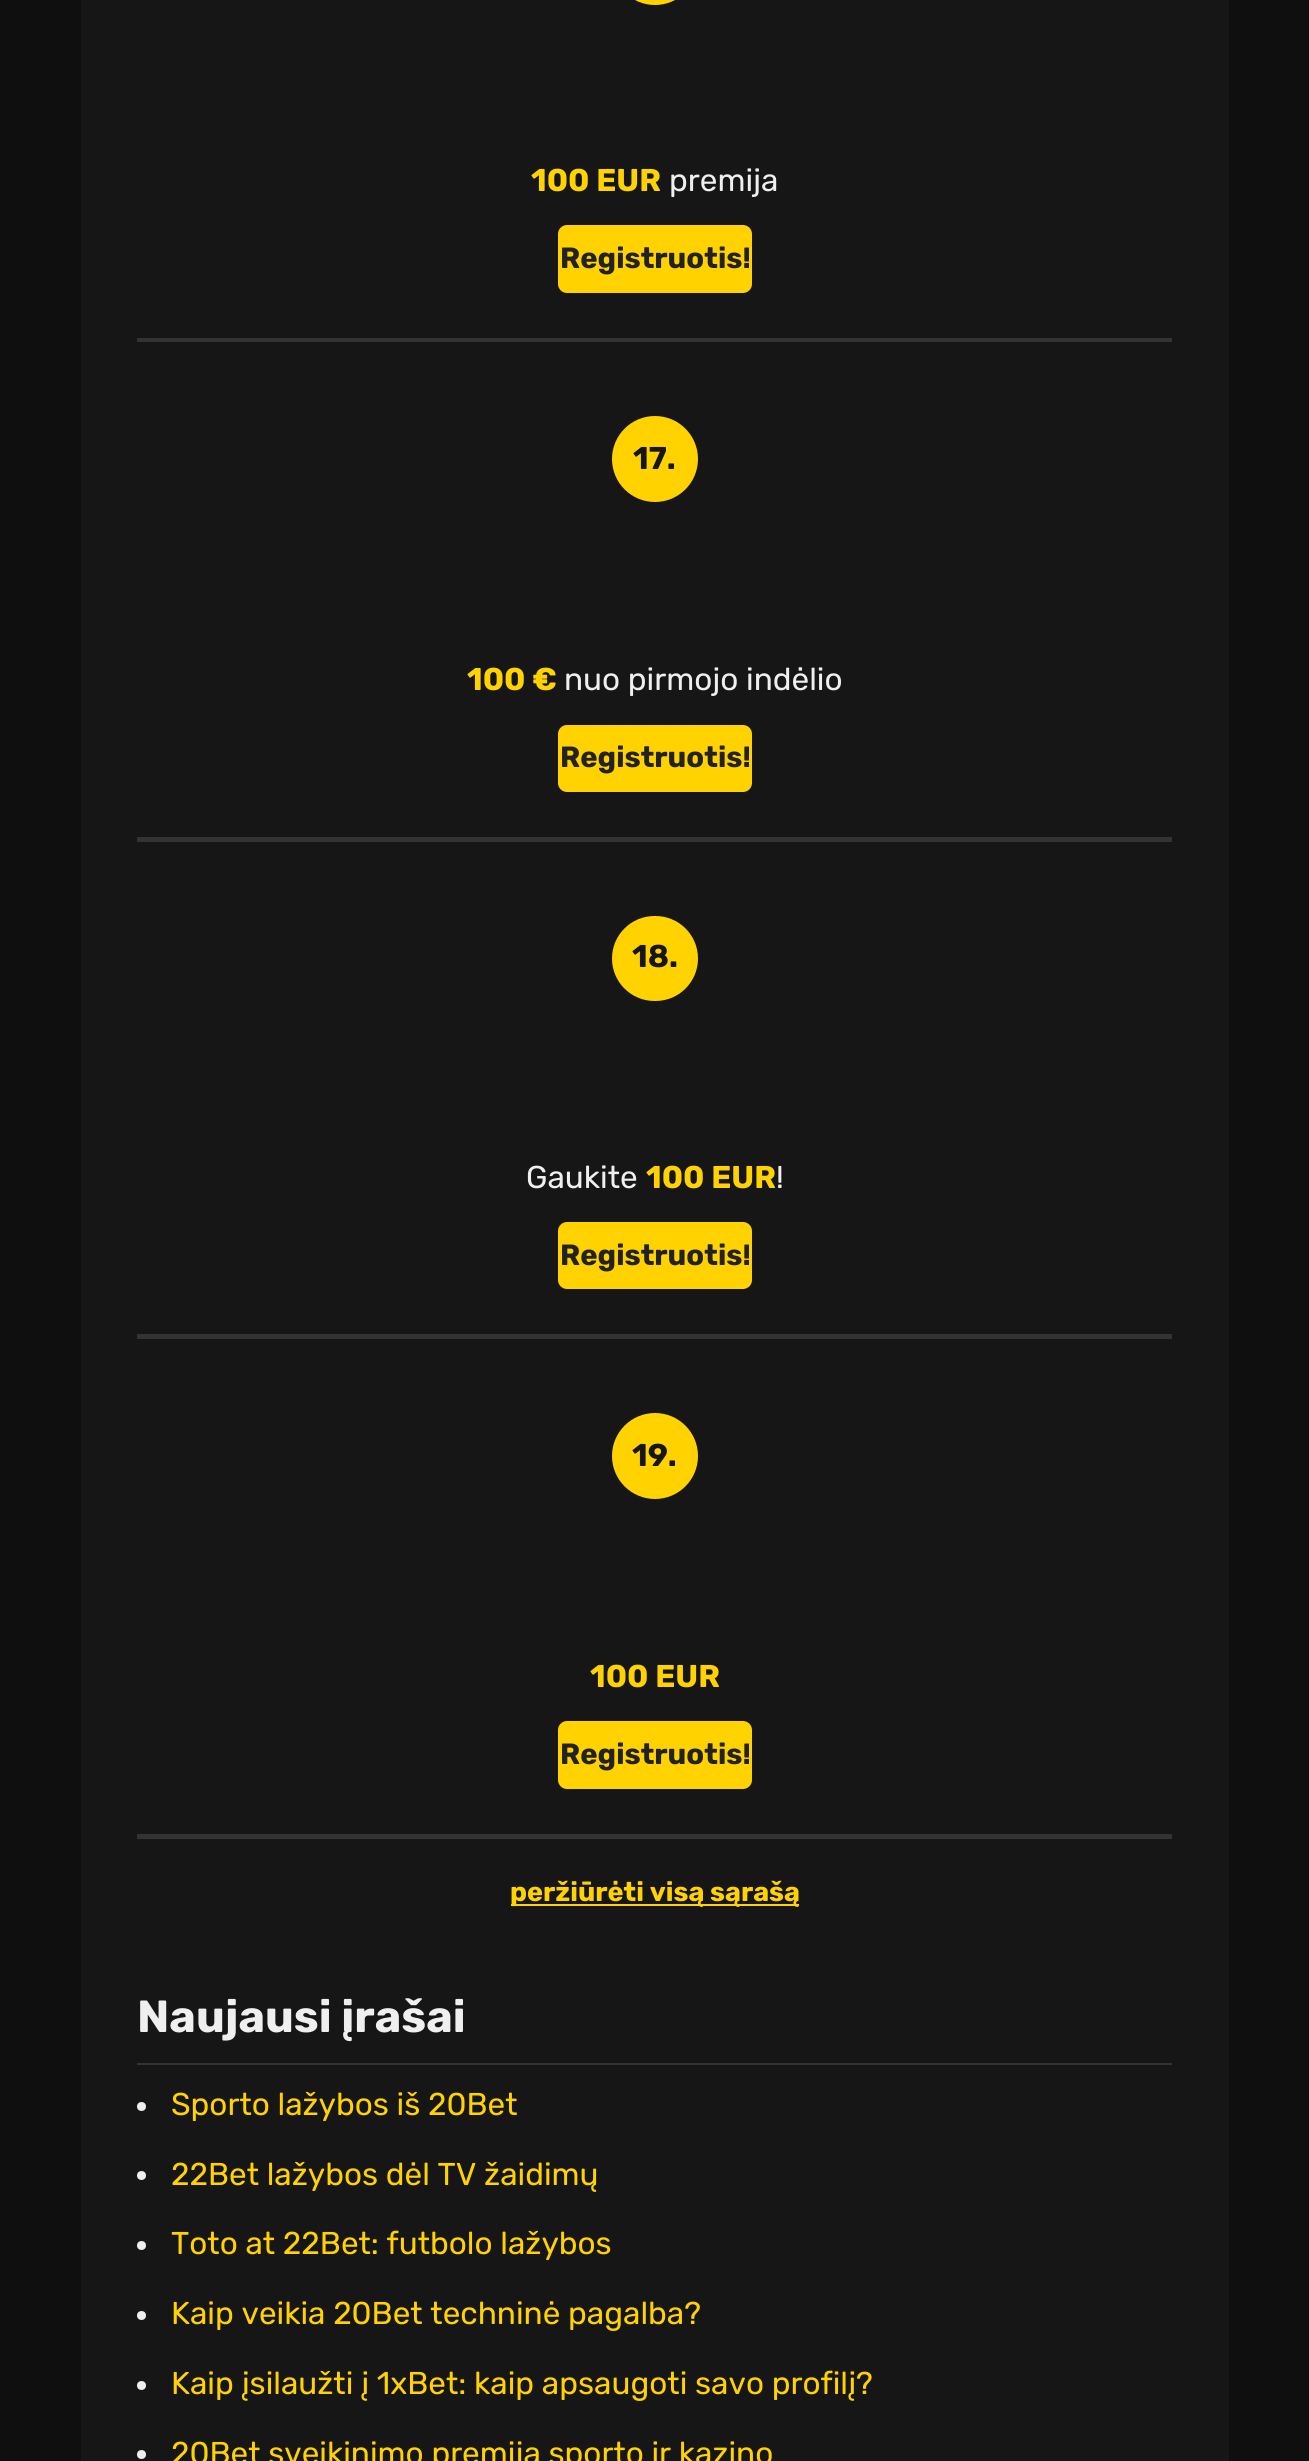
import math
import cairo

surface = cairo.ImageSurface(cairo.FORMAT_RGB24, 1309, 2461)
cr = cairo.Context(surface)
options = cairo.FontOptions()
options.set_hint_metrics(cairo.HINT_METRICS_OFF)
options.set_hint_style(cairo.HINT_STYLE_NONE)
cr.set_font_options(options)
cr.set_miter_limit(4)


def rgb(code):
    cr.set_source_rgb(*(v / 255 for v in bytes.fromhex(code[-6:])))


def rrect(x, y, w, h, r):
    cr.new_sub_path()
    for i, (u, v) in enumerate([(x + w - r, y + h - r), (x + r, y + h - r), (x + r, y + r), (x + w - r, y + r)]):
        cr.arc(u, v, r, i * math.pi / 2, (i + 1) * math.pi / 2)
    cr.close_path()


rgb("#0f0f0f")
cr.paint()
rgb("#161616")
cr.rectangle(81, 0, 1148, 2461)
cr.fill()
rgb("#333333")
cr.rectangle(137, 338, 1035, 4)
cr.fill()
rgb("#ffd200")
rrect(612, -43, 86, 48, 43)
cr.fill()
rrect(558, 225, 194, 68, 9)
cr.fill()
rgb("#333333")
cr.rectangle(137, 837, 1035, 5)
cr.fill()
rgb("#ffd200")
cr.arc(655, 459, 43, 0, 2 * math.pi)
cr.fill()
rrect(558, 725, 194, 67, 9)
cr.fill()
rgb("#333333")
cr.rectangle(137, 1334, 1035, 5)
cr.fill()
rgb("#ffd200")
rrect(612, 916, 86, 85, 42.5)
cr.fill()
rrect(558, 1222, 194, 67, 9)
cr.fill()
rgb("#333333")
cr.rectangle(137, 1834, 1035, 5)
cr.fill()
rgb("#ffd200")
cr.arc(655, 1456, 43, 0, 2 * math.pi)
cr.fill()
rrect(558, 1721, 194, 68, 9)
cr.fill()
cr.rectangle(511, 1904, 288, 2)
cr.fill()
rgb("#333333")
cr.rectangle(137, 2063, 1035, 2)
cr.fill()
rgb("#efefef")
cr.arc(141.5, 2106.5, 4.5, 0, 2 * math.pi)
cr.fill()
cr.arc(141.5, 2175.5, 4.5, 0, 2 * math.pi)
cr.fill()
cr.arc(141.5, 2245.5, 4.5, 0, 2 * math.pi)
cr.fill()
cr.arc(141.5, 2315.5, 4.5, 0, 2 * math.pi)
cr.fill()
cr.arc(141.5, 2385.5, 4.5, 0, 2 * math.pi)
cr.fill()
cr.arc(141.5, 2454.5, 4.5, 0, 2 * math.pi)
cr.fill()
cr.select_font_face("Rubik", cairo.FONT_SLANT_NORMAL, cairo.FONT_WEIGHT_BOLD)
cr.set_font_size(31.5)
rgb("#ffd200")
cr.move_to(531, 191)
cr.show_text("100 EUR")
cr.select_font_face("Rubik")
rgb("#efefef")
cr.move_to(669, 191)
cr.show_text("premija")
cr.save()
rrect(560, 227, 189, 63, 7)
cr.clip()
cr.select_font_face("Rubik", cairo.FONT_SLANT_NORMAL, cairo.FONT_WEIGHT_BOLD)
cr.set_font_size(29.25)
rgb("#222222")
cr.move_to(560, 268)
cr.show_text("Registruotis!")
cr.restore()
cr.select_font_face("Rubik", cairo.FONT_SLANT_NORMAL, cairo.FONT_WEIGHT_BOLD)
rgb("#161616")
cr.move_to(633, 469)
cr.show_text("17.")
rgb("#ffd200")
cr.move_to(467, 690)
cr.show_text("100 €")
cr.select_font_face("Rubik")
rgb("#efefef")
cr.move_to(564, 690)
cr.show_text("nuo pirmojo indėlio")
cr.save()
rrect(560, 727, 189, 63, 7)
cr.clip()
cr.select_font_face("Rubik", cairo.FONT_SLANT_NORMAL, cairo.FONT_WEIGHT_BOLD)
cr.set_font_size(29.25)
rgb("#222222")
cr.move_to(560, 767)
cr.show_text("Registruotis!")
cr.restore()
cr.select_font_face("Rubik", cairo.FONT_SLANT_NORMAL, cairo.FONT_WEIGHT_BOLD)
rgb("#161616")
cr.move_to(632, 967)
cr.show_text("18.")
cr.select_font_face("Rubik")
rgb("#efefef")
cr.move_to(526, 1188)
cr.show_text("Gaukite")
cr.select_font_face("Rubik", cairo.FONT_SLANT_NORMAL, cairo.FONT_WEIGHT_BOLD)
rgb("#ffd200")
cr.move_to(646, 1188)
cr.show_text("100 EUR")
cr.select_font_face("Rubik")
rgb("#efefef")
cr.move_to(776, 1188)
cr.show_text("!")
cr.save()
rrect(560, 1224, 189, 63, 7)
cr.clip()
cr.select_font_face("Rubik", cairo.FONT_SLANT_NORMAL, cairo.FONT_WEIGHT_BOLD)
cr.set_font_size(29.25)
rgb("#222222")
cr.move_to(560, 1265)
cr.show_text("Registruotis!")
cr.restore()
cr.select_font_face("Rubik", cairo.FONT_SLANT_NORMAL, cairo.FONT_WEIGHT_BOLD)
rgb("#161616")
cr.move_to(632, 1466)
cr.show_text("19.")
rgb("#ffd200")
cr.move_to(590, 1687)
cr.show_text("100 EUR")
cr.save()
rrect(560, 1724, 189, 63, 7)
cr.clip()
cr.set_font_size(29.25)
rgb("#222222")
cr.move_to(560, 1764)
cr.show_text("Registruotis!")
cr.restore()
cr.set_font_size(27)
cr.move_to(510, 1901)
cr.show_text("peržiūrėti visą sąrašą")
cr.set_font_size(45)
rgb("#efefef")
cr.move_to(137, 2032)
cr.show_text("Naujausi įrašai")
cr.select_font_face("Rubik")
cr.set_font_size(31.5)
rgb("#ffd200")
for x, y, s in [
    (171, 2115, "Sporto lažybos iš 20Bet"),
    (171, 2185, "22Bet lažybos dėl TV žaidimų"),
    (171, 2254, "Toto at 22Bet: futbolo lažybos"),
    (171, 2324, "Kaip veikia 20Bet techninė pagalba?"),
    (171, 2394, "Kaip įsilaužti į 1xBet: kaip apsaugoti savo profilį?"),
    (171, 2464, "20Bet sveikinimo premija sporto ir kazino"),
]:
    cr.move_to(x, y)
    cr.show_text(s)
surface.write_to_png("page.png")
